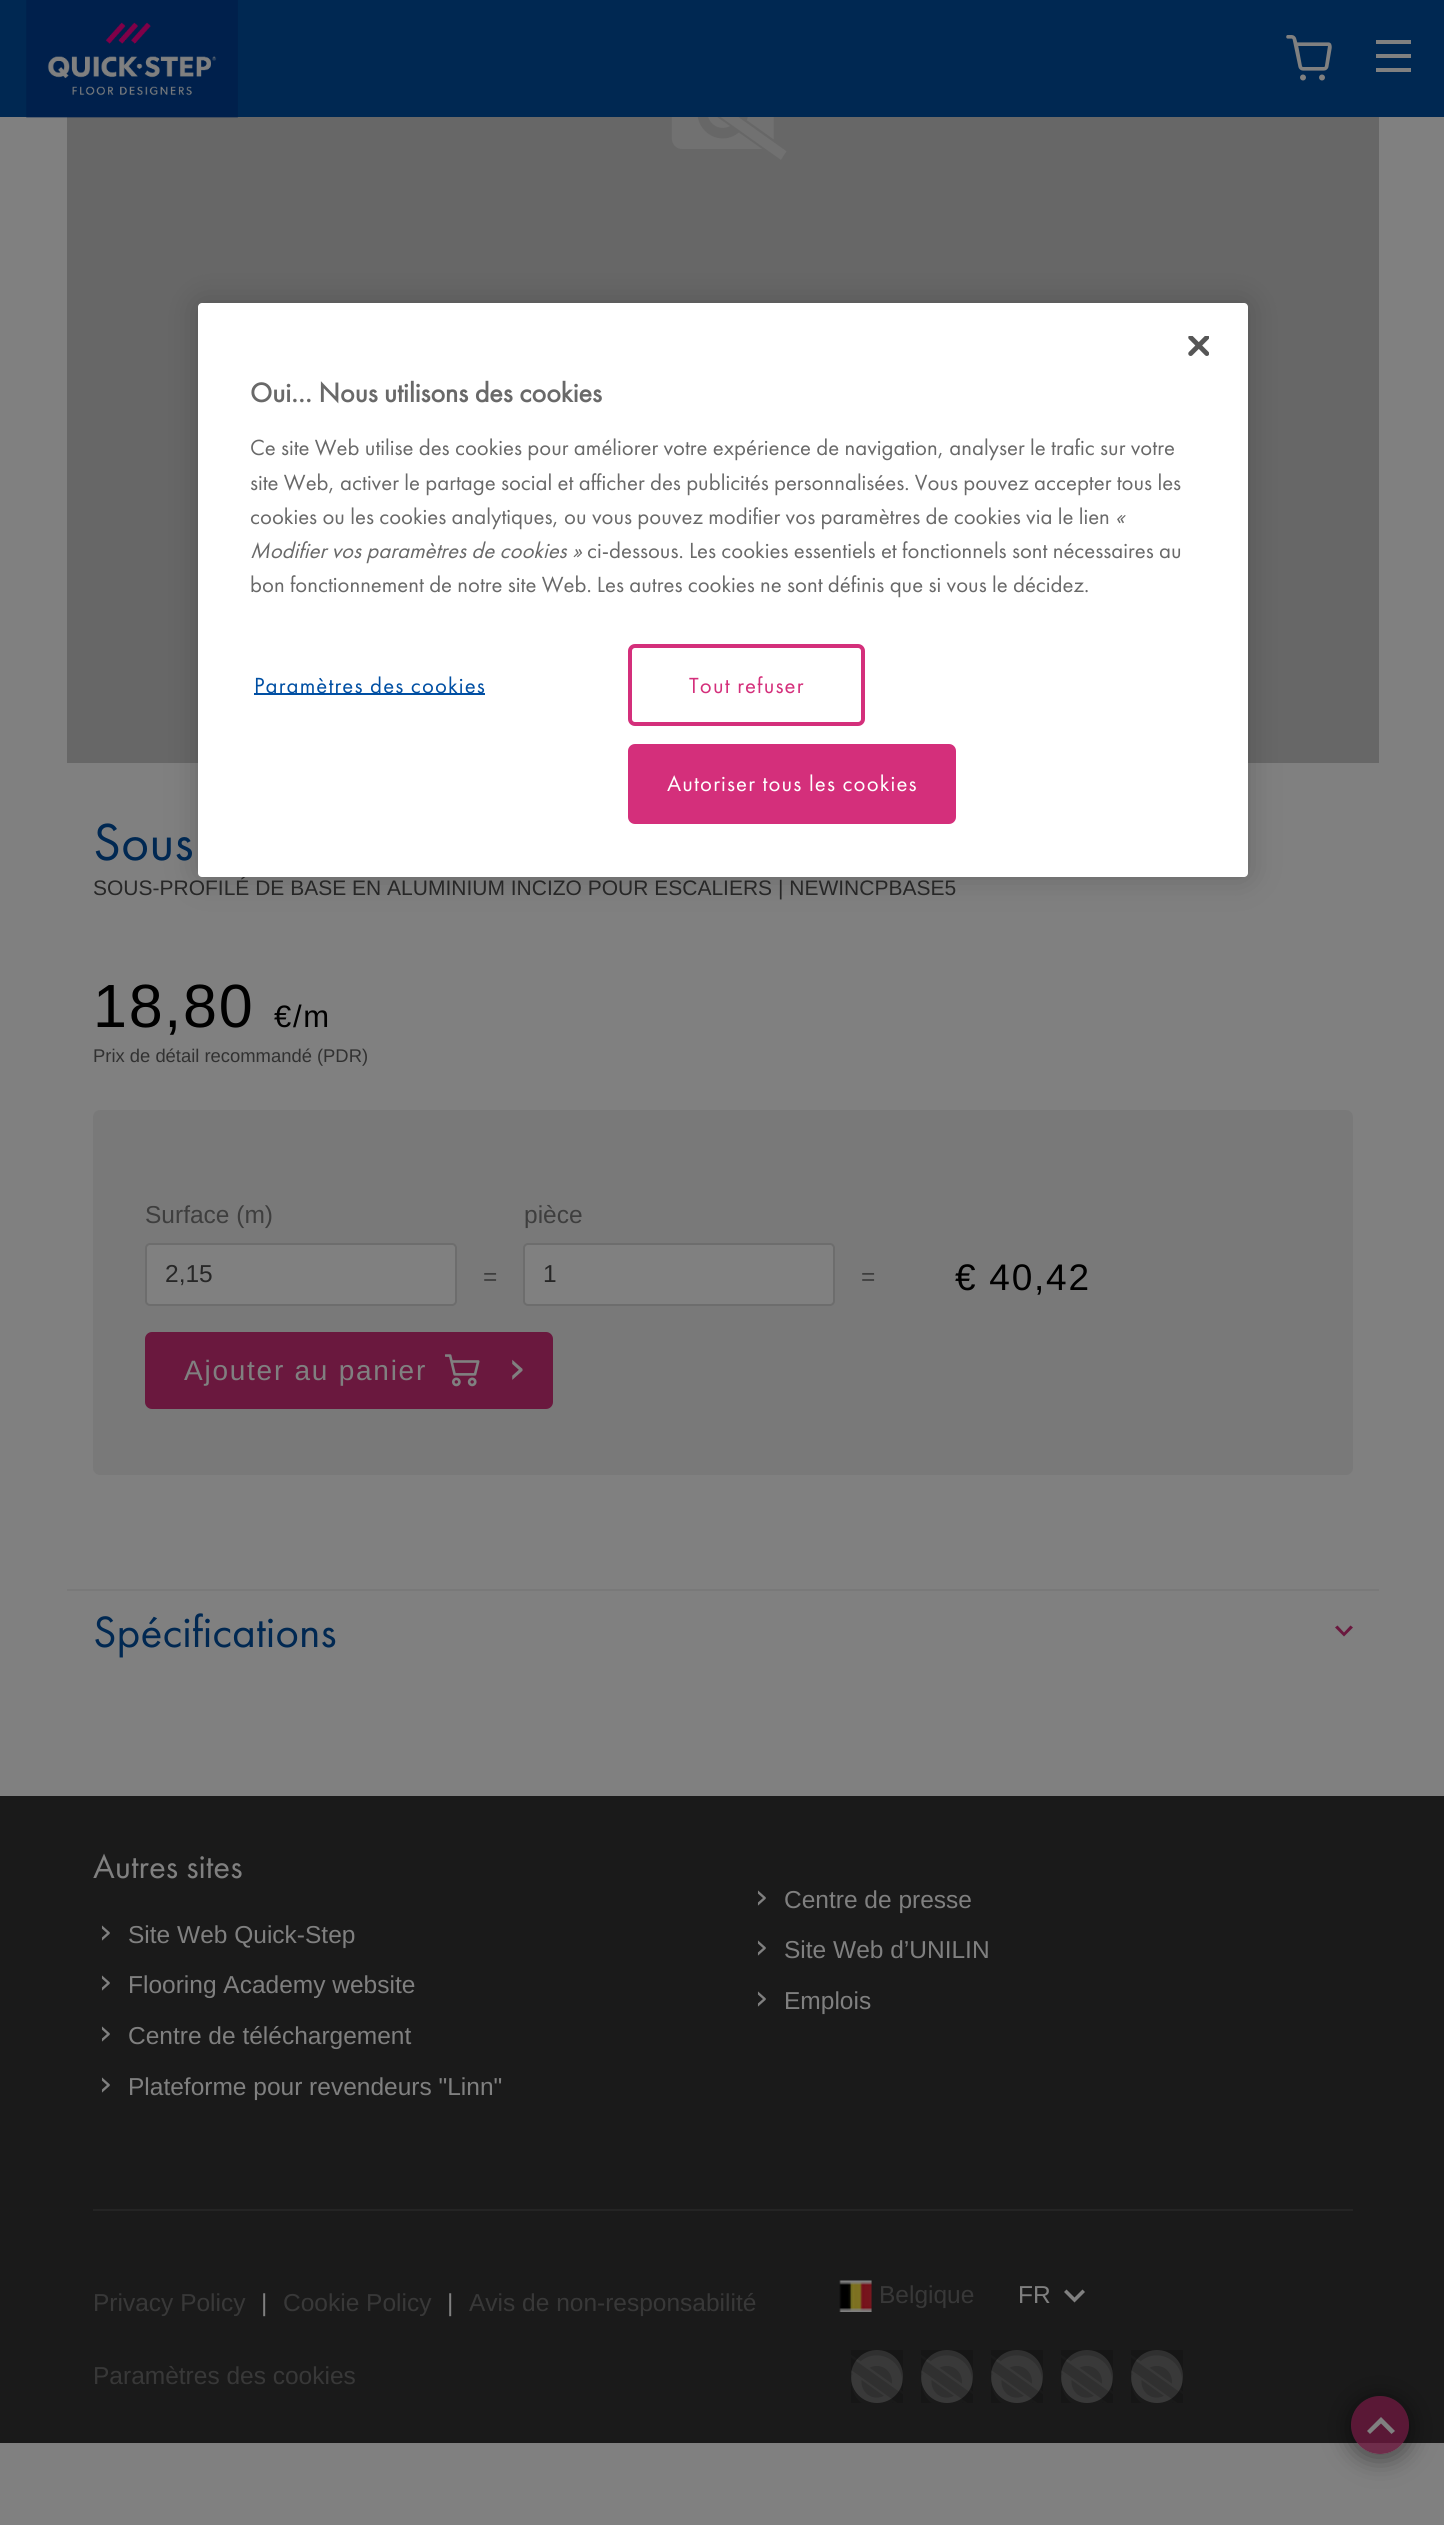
import math
import cairo

surface = cairo.ImageSurface(cairo.FORMAT_RGB24, 1444, 2525)
cr = cairo.Context(surface)
options = cairo.FontOptions()
options.set_hint_metrics(cairo.HINT_METRICS_OFF)
options.set_hint_style(cairo.HINT_STYLE_NONE)
cr.set_font_options(options)
cr.set_miter_limit(4)


def rgb(code):
    cr.set_source_rgb(*(v / 255 for v in bytes.fromhex(code[-6:])))


def tracked(x, y, s, letter, word):
    cr.move_to(x, y)
    for ch in s:
        cr.show_text(ch)
        cr.rel_move_to(letter + word * (ch == ' '), 0)


def rrect(x, y, w, h, r):
    cr.new_sub_path()
    for i, (u, v) in enumerate([(x + w - r, y + h - r), (x + r, y + h - r), (x + r, y + r), (x + w - r, y + r)]):
        cr.arc(u, v, r, i * math.pi / 2, (i + 1) * math.pi / 2)
    cr.close_path()


def soft_shadow(x, y, w, h, r, blur, alpha):
    cr.push_group_with_content(cairo.CONTENT_ALPHA)
    cr.set_operator(cairo.OPERATOR_SOURCE)
    for i in range(15, -16, -2):
        e = blur * i / 6
        if min(w, h) + 2 * e > 0:
            cr.set_source_rgba(0, 0, 0, alpha * math.erfc((i - 1) / 8.5) / 2)
            rrect(x - e, y - e, w + 2 * e, h + 2 * e, max(0, min(r + e + blur * .6, min(w, h) / 2 + e)))
            cr.fill()
    cr.mask(cr.pop_group())


def image(path, x, y, w, h):
    cr.save()
    cr.set_source_surface(cairo.ImageSurface.create_from_png(path), x, y)
    cr.rectangle(x, y, w, h)
    cr.fill()
    cr.restore()


rgb("#808080")
cr.paint()
rgb("#002852")
cr.rectangle(0, 0, 1444, 117)
cr.fill()
rgb("#676767")
cr.rectangle(67, 117, 1312, 646)
cr.fill()
image("img/1.png", 26, 0, 212, 118)
image("img/2.png", 1286, 35, 46, 46)
for x, y, w, h, color in [
    (1376, 40, 35, 4, "#808080"),
    (1376, 54, 35, 4, "#808080"),
    (1376, 68, 35, 4, "#808080"),
]:
    rgb(color)
    cr.rectangle(x, y, w, h)
    cr.fill()
rgb("#000000")
soft_shadow(198, 303, 1050, 574, 4, 16, 0.2)
image("img/4.png", 671, 117, 116, 43)
rgb("#797979")
rrect(93, 1110, 1260, 365, 7)
cr.fill()
rgb("#808080")
rrect(146, 1244, 310, 61, 4)
cr.fill_preserve()
rgb("#6d6d6d")
cr.stroke()
rgb("#808080")
rrect(524, 1244, 310, 61, 4)
cr.fill_preserve()
rgb("#6d6d6d")
cr.stroke()
rgb("#6a183e")
rrect(147, 1334, 404, 73, 5)
cr.fill_preserve()
cr.set_line_width(4)
cr.stroke()
image("img/5.png", 445, 1354, 35, 33)
rgb("#797979")
cr.rectangle(67, 1589, 1312, 2)
cr.fill()
rgb("#6a183e")
cr.new_path()
cr.move_to(1350.5, 1625.5)
cr.line_to(1344, 1632.5)
cr.line_to(1337.5, 1625.5)
cr.line_to(1335, 1627.5)
cr.line_to(1344, 1636.5)
cr.line_to(1353, 1627.5)
cr.close_path()
cr.fill()
rgb("#1a1a1a")
cr.rectangle(0, 1796, 1444, 647)
cr.fill()
cr.save()
cr.set_fill_rule(cairo.FILL_RULE_EVEN_ODD)
cr.new_path()
cr.move_to(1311, 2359)
cr.line_to(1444, 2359)
cr.line_to(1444, 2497)
cr.line_to(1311, 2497)
cr.close_path()
cr.move_to(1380, 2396)
cr.curve_to(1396, 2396, 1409, 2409, 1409, 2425)
cr.curve_to(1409, 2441, 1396, 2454, 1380, 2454)
cr.curve_to(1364, 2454, 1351, 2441, 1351, 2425)
cr.curve_to(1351, 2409, 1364, 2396, 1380, 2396)
cr.close_path()
cr.clip()
rgb("#000000")
soft_shadow(1351, 2399, 58, 58, 29, 13, 0.5)
cr.restore()
cr.set_source_rgba(0.416, 0.094, 0.243, 0.8)
cr.arc(1380, 2425, 29, 0, 2 * math.pi)
cr.fill()
rgb("#808080")
cr.new_path()
cr.move_to(1381, 2417)
cr.line_to(1367, 2431)
cr.line_to(1370, 2434)
cr.line_to(1381, 2423.5)
cr.line_to(1391.5, 2434)
cr.line_to(1395, 2431)
cr.close_path()
cr.fill()
rgb("#242424")
cr.rectangle(93, 2209, 1260, 2)
cr.fill()
image("img/6.png", 839, 2280, 33, 32)
rgb("#808080")
cr.new_path()
cr.move_to(1082.5, 2289.5)
cr.line_to(1074.5, 2297.5)
cr.line_to(1066.5, 2289.5)
cr.line_to(1064, 2292)
cr.line_to(1074.5, 2302.5)
cr.line_to(1085, 2292)
cr.close_path()
cr.fill()
rgb("#393939")
rrect(851, 2350, 52, 53, 26)
cr.fill()
image("img/7.png", 851, 2350, 52, 53)
rrect(921, 2350, 52, 53, 26)
cr.fill()
image("img/7.png", 921, 2350, 52, 53)
rrect(991, 2350, 52, 53, 26)
cr.fill()
image("img/7.png", 991, 2350, 52, 53)
rrect(1061, 2350, 52, 53, 26)
cr.fill()
image("img/7.png", 1061, 2350, 52, 53)
rrect(1131, 2350, 52, 53, 26)
cr.fill()
image("img/7.png", 1131, 2350, 52, 53)
cr.select_font_face("Futura PT")
cr.set_font_size(54)
rgb("#002852")
cr.move_to(93, 860)
cr.show_text("Sous")
cr.select_font_face("Liberation Sans")
cr.set_font_size(21)
rgb("#272727")
cr.move_to(93, 895)
cr.show_text("SOUS-PROFILÉ DE BASE EN ALUMINIUM INCIZO POUR ESCALIERS | NEWINCPBASE5")
rgb("#ffffff")
rrect(198, 303, 1050, 574, 4)
cr.fill()
image("img/3.png", 1188, 336, 21, 20)
rgb("#d42f7b")
rrect(630, 746, 324, 76, 5)
cr.fill_preserve()
cr.stroke()
cr.select_font_face("Futura PT")
cr.set_font_size(22.75)
rgb("#ffffff")
tracked(667, 791, "Autoriser tous les cookies", 1.15, 0)
rrect(630, 646, 233, 78, 5)
rgb("#d42f7b")
cr.stroke()
tracked(689, 693, "Tout refuser", 1.15, 0)
rgb("#004fa3")
cr.rectangle(254, 693, 231, 2)
cr.fill()
tracked(254, 693, "Paramètres des cookies", 1.15, 0)
rgb("#696969")
cr.move_to(250, 592)
cr.show_text("bon fonctionnement de notre site Web. Les autres cookies ne sont définis que si vous le décidez.")
cr.move_to(587, 558)
cr.show_text("ci-dessous. Les cookies essentiels et fonctionnels sont nécessaires au")
cr.select_font_face("Futura PT", cairo.FONT_SLANT_ITALIC)
cr.move_to(250, 558)
cr.show_text("Modifier vos paramètres de cookies »")
cr.move_to(1115, 524)
cr.show_text("«")
cr.select_font_face("Futura PT")
for x, y, s in [
    (250, 524, "cookies ou les cookies analytiques, ou vous pouvez modifier vos paramètres de cookies via le lien"),
    (250, 490, "site Web, activer le partage social et afficher des publicités personnalisées. Vous pouvez accepter tous les"),
    (250, 455, "Ce site Web utilise des cookies pour améliorer votre expérience de navigation, analyser le trafic sur votre"),
]:
    cr.move_to(x, y)
    cr.show_text(s)
cr.select_font_face("Futura PT", cairo.FONT_SLANT_NORMAL, cairo.FONT_WEIGHT_BOLD)
cr.set_font_size(28)
cr.move_to(250, 402)
cr.show_text("Oui… Nous utilisons des cookies")
cr.select_font_face("Liberation Sans")
cr.set_font_size(61)
rgb("#000000")
tracked(93, 1027, "18,80", 1.75, 0)
cr.set_font_size(31)
tracked(274, 1027, "€/m", 1.75, 0)
cr.set_font_size(18.4)
rgb("#313131")
cr.move_to(93, 1062)
cr.show_text("Prix de détail recommandé (PDR)")
cr.set_font_size(24.5)
rgb("#3e3e3e")
cr.move_to(145, 1223)
cr.show_text("Surface (m)")
rgb("#272727")
cr.move_to(165, 1282)
cr.show_text("2,15")
rgb("#3e3e3e")
cr.move_to(483, 1285)
cr.show_text("=")
cr.move_to(524, 1223)
cr.show_text("pièce")
rgb("#272727")
cr.move_to(543, 1282)
cr.show_text("1")
rgb("#3e3e3e")
cr.move_to(861, 1285)
cr.show_text("=")
cr.set_font_size(37)
rgb("#000000")
tracked(955, 1290, "€ 40,42", 1.75, 0)
cr.set_font_size(28)
rgb("#808080")
tracked(184, 1380, "Ajouter au panier", 1.75, 0)
cr.select_font_face("DejaVu Sans Mono")
cr.set_font_size(45)
tracked(503, 1383, "›", 1.75, 0)
cr.select_font_face("Futura PT")
cr.set_font_size(45.5)
rgb("#002852")
cr.move_to(93, 1647)
cr.show_text("Spécifications")
cr.set_font_size(35)
rgb("#808080")
cr.move_to(93, 1878)
cr.show_text("Autres sites")
cr.select_font_face("DejaVu Sans Mono")
cr.set_font_size(34)
cr.move_to(95, 1943)
cr.show_text("›")
cr.select_font_face("Liberation Sans")
cr.set_font_size(24.5)
cr.move_to(128, 1943)
cr.show_text("Site Web Quick-Step")
cr.select_font_face("DejaVu Sans Mono")
cr.set_font_size(34)
cr.move_to(95, 1993)
cr.show_text("›")
cr.select_font_face("Liberation Sans")
cr.set_font_size(24.5)
cr.move_to(128, 1993)
cr.show_text("Flooring Academy website")
cr.select_font_face("DejaVu Sans Mono")
cr.set_font_size(34)
cr.move_to(95, 2044)
cr.show_text("›")
cr.select_font_face("Liberation Sans")
cr.set_font_size(24.5)
cr.move_to(128, 2044)
cr.show_text("Centre de téléchargement")
cr.select_font_face("DejaVu Sans Mono")
cr.set_font_size(34)
cr.move_to(95, 2095)
cr.show_text("›")
cr.select_font_face("Liberation Sans")
cr.set_font_size(24.5)
cr.move_to(128, 2095)
cr.show_text("Plateforme pour revendeurs \"Linn\"")
cr.select_font_face("DejaVu Sans Mono")
cr.set_font_size(34)
cr.move_to(751, 1908)
cr.show_text("›")
cr.select_font_face("Liberation Sans")
cr.set_font_size(24.5)
cr.move_to(784, 1908)
cr.show_text("Centre de presse")
cr.select_font_face("DejaVu Sans Mono")
cr.set_font_size(34)
cr.move_to(751, 1958)
cr.show_text("›")
cr.select_font_face("Liberation Sans")
cr.set_font_size(24.5)
cr.move_to(784, 1958)
cr.show_text("Site Web d’UNILIN")
cr.select_font_face("DejaVu Sans Mono")
cr.set_font_size(34)
cr.move_to(751, 2009)
cr.show_text("›")
cr.select_font_face("Liberation Sans")
cr.set_font_size(24.5)
cr.move_to(784, 2009)
cr.show_text("Emplois")
rgb("#383838")
cr.move_to(93, 2311)
cr.show_text("Privacy Policy")
rgb("#808080")
cr.move_to(261, 2311)
cr.show_text("|")
rgb("#383838")
cr.move_to(283, 2311)
cr.show_text("Cookie Policy")
rgb("#808080")
cr.move_to(447, 2311)
cr.show_text("|")
rgb("#383838")
for x, y, s in [
    (469, 2311, "Avis de non-responsabilité"),
    (93, 2384, "Paramètres des cookies"),
    (879, 2303, "Belgique"),
]:
    cr.move_to(x, y)
    cr.show_text(s)
rgb("#808080")
cr.move_to(1018, 2303)
cr.show_text("FR")
surface.write_to_png("page.png")
